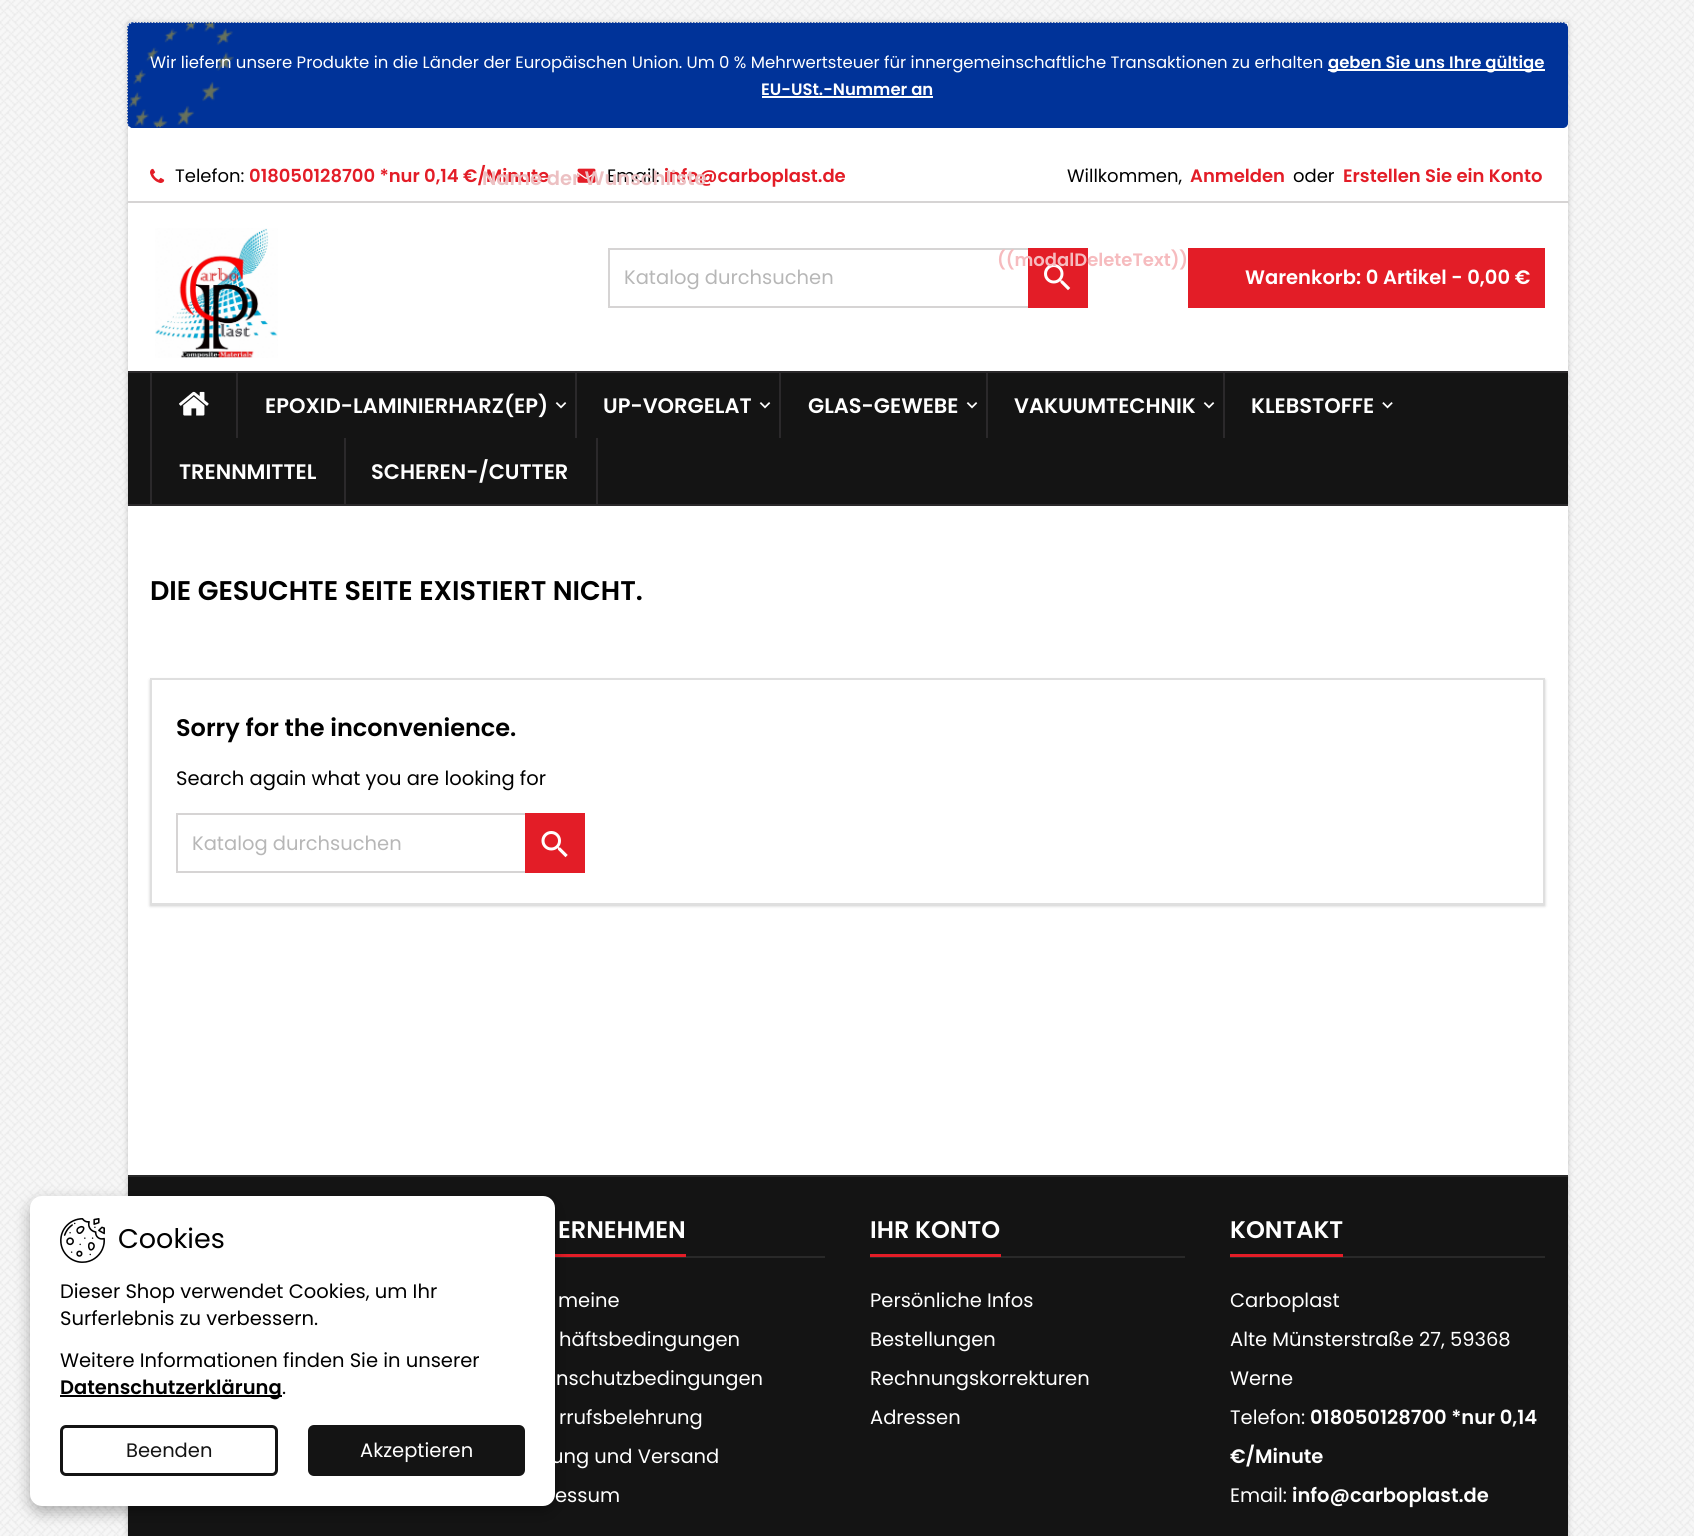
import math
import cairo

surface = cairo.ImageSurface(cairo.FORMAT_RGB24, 1694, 1536)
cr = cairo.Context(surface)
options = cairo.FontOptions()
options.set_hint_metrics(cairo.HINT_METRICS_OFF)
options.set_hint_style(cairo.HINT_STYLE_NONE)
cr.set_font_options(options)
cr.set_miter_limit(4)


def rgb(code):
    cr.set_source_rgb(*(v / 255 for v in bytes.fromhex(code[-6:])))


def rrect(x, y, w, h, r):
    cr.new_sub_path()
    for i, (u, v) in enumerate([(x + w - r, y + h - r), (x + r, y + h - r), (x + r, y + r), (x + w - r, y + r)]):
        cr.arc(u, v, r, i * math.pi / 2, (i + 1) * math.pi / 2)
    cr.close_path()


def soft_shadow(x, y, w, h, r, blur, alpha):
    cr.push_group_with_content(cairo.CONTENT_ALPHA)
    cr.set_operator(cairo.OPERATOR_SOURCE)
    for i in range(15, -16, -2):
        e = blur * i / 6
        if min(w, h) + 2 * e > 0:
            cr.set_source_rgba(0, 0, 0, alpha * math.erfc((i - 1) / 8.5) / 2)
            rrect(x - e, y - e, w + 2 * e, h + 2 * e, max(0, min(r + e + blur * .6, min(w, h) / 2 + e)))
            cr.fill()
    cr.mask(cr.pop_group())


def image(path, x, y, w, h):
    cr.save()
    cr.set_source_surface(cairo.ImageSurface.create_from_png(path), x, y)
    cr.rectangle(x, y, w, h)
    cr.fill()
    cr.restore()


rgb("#f7f7f7")
cr.paint()
image("img/1.png", 0, 0, 1694, 1536)
rgb("#000000")
soft_shadow(128, 23, 1440, 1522, 0, 3, 0.2)
rgb("#ffffff")
cr.rectangle(128, 23, 1440, 1152)
cr.fill()
rgb("#003399")
rrect(128, 23, 1440, 105, 5)
cr.fill()
image("img/2.png", 129, 22, 105, 106)
cr.new_path()
cr.move_to(132, 23)
cr.line_to(1563, 23)
cr.curve_to(1565, 23, 1567, 25, 1567, 27)
cr.line_to(1567, 123)
cr.curve_to(1567, 125, 1565, 127, 1563, 127)
cr.line_to(132, 127)
cr.curve_to(130, 127, 128, 125, 128, 123)
cr.line_to(128, 27)
cr.curve_to(128, 25, 130, 23, 132, 23)
cr.close_path()
cr.set_line_width(1.5)
cr.set_dash([1.5, 1.5])
cr.stroke()
for x, y, w, h, color in [
    (1328, 69, 217, 2, "#ffffff"),
    (762, 96, 171, 2, "#ffffff"),
    (128, 201, 1440, 2, "#d6d4d4"),
]:
    rgb(color)
    cr.rectangle(x, y, w, h)
    cr.fill()
image("img/3.png", 150, 168, 15, 15)
image("img/4.png", 577, 168, 19, 15)
image("img/5.png", 155, 228, 123, 130)
cr.rectangle(609, 249, 478, 58)
cr.set_line_width(2)
cr.set_dash([])
cr.stroke()
rgb("#e31d27")
cr.rectangle(1028, 248, 60, 60)
cr.fill()
image("img/6.png", 1044, 264, 27, 27)
for x, y, w, h, color in [
    (1188, 248, 357, 60, "#e31d27"),
    (128, 373, 1440, 131, "#141414"),
    (128, 371, 1440, 2, "#2b292b"),
    (128, 504, 1440, 2, "#2b292b"),
    (150, 372, 2, 132, "#2b292b"),
]:
    rgb(color)
    cr.rectangle(x, y, w, h)
    cr.fill()
image("img/7.png", 179, 391, 30, 25)
cr.rectangle(236, 372, 2, 66)
cr.fill()
image("img/8.png", 555, 402, 12, 7)
cr.rectangle(575, 372, 2, 66)
cr.fill()
image("img/8.png", 759, 402, 12, 7)
cr.rectangle(779, 372, 2, 66)
cr.fill()
image("img/8.png", 966, 402, 12, 7)
cr.rectangle(986, 372, 2, 66)
cr.fill()
image("img/8.png", 1203, 402, 12, 7)
cr.rectangle(1223, 372, 2, 66)
cr.fill()
image("img/9.png", 1382, 402, 11, 7)
for x, y, w, h, color in [
    (596, 438, 2, 66, "#2b292b"),
    (344, 438, 2, 66, "#2b292b"),
    (128, 1177, 1440, 359, "#141414"),
    (128, 1175, 1440, 2, "#292929"),
    (555, 1256, 270, 2, "#292929"),
    (555, 1254, 131, 3, "#e31d27"),
]:
    rgb(color)
    cr.rectangle(x, y, w, h)
    cr.fill()
rgb("#000000")
soft_shadow(30, 1202, 525, 310, 12, 7.5, 0.3)
rgb("#ffffff")
rrect(30, 1196, 525, 310, 12)
cr.fill()
image("img/10.png", 60, 1218, 45, 45)
rgb("#000000")
cr.rectangle(60, 1395, 222, 2)
cr.fill()
rrect(61.5, 1426.5, 215, 48, 4.5)
rgb("#141414")
cr.set_line_width(3)
cr.stroke()
rrect(309.5, 1426.5, 214, 48, 4.5)
cr.fill_preserve()
cr.stroke()
for x, y, w, h, color in [
    (870, 1256, 315, 2, "#292929"),
    (870, 1254, 131, 3, "#e31d27"),
    (1230, 1256, 315, 2, "#292929"),
    (1230, 1254, 113, 3, "#e31d27"),
]:
    rgb(color)
    cr.rectangle(x, y, w, h)
    cr.fill()
rgb("#000000")
soft_shadow(150, 680, 1395, 226, 0, 1.5, 0.2)
rgb("#ffffff")
cr.rectangle(151, 679, 1393, 225)
cr.fill_preserve()
rgb("#dfdfdf")
cr.set_line_width(2)
cr.stroke()
cr.rectangle(177, 814, 407, 58)
rgb("#d6d4d4")
cr.stroke()
rgb("#e31d27")
cr.rectangle(525, 813, 60, 60)
cr.fill()
image("img/11.png", 541, 831, 27, 27)
cr.select_font_face("Poppins")
cr.set_font_size(16.5)
rgb("#ffffff")
cr.move_to(150, 68)
cr.show_text("Wir liefern unsere Produkte in die Länder der Europäischen Union. Um 0 % Mehrwertsteuer für innergemeinschaftliche Transaktionen zu erhalten")
cr.select_font_face("Poppins SemiBold")
cr.move_to(1328, 68)
cr.show_text("geben Sie uns Ihre gültige")
cr.move_to(761, 95)
cr.show_text("EU-USt.-Nummer an")
cr.select_font_face("Poppins")
cr.set_font_size(18)
rgb("#000000")
cr.move_to(175, 182)
cr.show_text("Telefon:")
cr.select_font_face("Poppins SemiBold")
rgb("#e31d27")
cr.move_to(249, 182)
cr.show_text("018050128700 *nur 0,14 €/Minute")
cr.select_font_face("Poppins")
rgb("#000000")
cr.move_to(607, 182)
cr.show_text("Email:")
cr.select_font_face("Poppins SemiBold")
rgb("#e31d27")
cr.move_to(664, 182)
cr.show_text("info@carboplast.de")
cr.select_font_face("Poppins")
rgb("#000000")
cr.move_to(1067, 182)
cr.show_text("Willkommen,")
cr.select_font_face("Poppins SemiBold")
rgb("#e31d27")
cr.move_to(1190, 182)
cr.show_text("Anmelden")
cr.select_font_face("Poppins")
rgb("#000000")
cr.move_to(1293, 182)
cr.show_text("oder")
cr.select_font_face("Poppins SemiBold")
rgb("#e31d27")
cr.move_to(1343, 182)
cr.show_text("Erstellen Sie ein Konto")
cr.select_font_face("Poppins")
cr.set_font_size(19.5)
rgb("#b7b7b7")
cr.move_to(624, 284)
cr.show_text("Katalog durchsuchen")
cr.select_font_face("Poppins SemiBold")
rgb("#ffffff")
cr.move_to(1245, 284)
cr.show_text("Warenkorb: 0 Artikel - 0,00 €")
cr.set_font_size(21)
for x, y, s in [
    (265, 413, "EPOXID-LAMINIERHARZ(EP)"),
    (603, 413, "UP-VORGELAT"),
    (808, 413, "GLAS-GEWEBE"),
    (1014, 413, "VAKUUMTECHNIK"),
    (1251, 413, "KLEBSTOFFE"),
    (179, 479, "TRENNMITTEL"),
    (371, 479, "SCHEREN-/CUTTER"),
]:
    cr.move_to(x, y)
    cr.show_text(s)
cr.set_font_size(19.5)
rgb("#ecc0c2")
cr.move_to(482, 185)
cr.show_text("Name der Wunschliste")
cr.set_font_size(18)
rgb("#f6bbbe")
cr.move_to(997, 266)
cr.show_text("((modalDeleteText))")
cr.select_font_face("Poppins")
cr.set_font_size(27)
rgb("#000000")
cr.move_to(118, 1248)
cr.show_text("Cookies")
cr.set_font_size(19.5)
for x, y, s in [
    (60, 1298, "Dieser Shop verwendet Cookies, um Ihr"),
    (60, 1325, "Surferlebnis zu verbessern."),
    (60, 1367, "Weitere Informationen finden Sie in unserer"),
]:
    cr.move_to(x, y)
    cr.show_text(s)
cr.select_font_face("Poppins SemiBold")
cr.move_to(60, 1394)
cr.show_text("Datenschutzerklärung")
cr.select_font_face("Poppins")
cr.move_to(282, 1394)
cr.show_text(".")
rgb("#141414")
cr.move_to(126, 1457)
cr.show_text("Beenden")
rgb("#ffffff")
cr.move_to(360, 1457)
cr.show_text("Akzeptieren")
cr.select_font_face("Poppins SemiBold")
cr.set_font_size(24)
cr.move_to(558, 1238)
cr.show_text("ERNEHMEN")
cr.select_font_face("Poppins")
cr.set_font_size(19.5)
for x, y, s in [
    (558, 1307, "meine"),
    (559, 1346, "häftsbedingungen"),
    (556, 1385, "nschutzbedingungen"),
    (559, 1424, "rrufsbelehrung"),
    (551, 1463, "ung und Versand"),
    (555, 1502, "essum"),
]:
    cr.move_to(x, y)
    cr.show_text(s)
cr.select_font_face("Poppins SemiBold")
cr.set_font_size(24)
cr.move_to(870, 1238)
cr.show_text("IHR KONTO")
cr.select_font_face("Poppins")
cr.set_font_size(19.5)
for x, y, s in [
    (870, 1307, "Persönliche Infos"),
    (870, 1346, "Bestellungen"),
    (870, 1385, "Rechnungskorrekturen"),
    (870, 1424, "Adressen"),
]:
    cr.move_to(x, y)
    cr.show_text(s)
cr.select_font_face("Poppins SemiBold")
cr.set_font_size(24)
cr.move_to(1230, 1238)
cr.show_text("KONTAKT")
cr.select_font_face("Poppins")
cr.set_font_size(19.5)
for x, y, s in [
    (1230, 1307, "Carboplast"),
    (1230, 1346, "Alte Münsterstraße 27, 59368"),
    (1230, 1385, "Werne"),
    (1230, 1424, "Telefon:"),
]:
    cr.move_to(x, y)
    cr.show_text(s)
cr.select_font_face("Poppins SemiBold")
cr.move_to(1310, 1424)
cr.show_text("018050128700 *nur 0,14")
cr.move_to(1230, 1463)
cr.show_text("€/Minute")
cr.select_font_face("Poppins")
cr.move_to(1230, 1502)
cr.show_text("Email:")
cr.select_font_face("Poppins SemiBold")
cr.move_to(1292, 1502)
cr.show_text("info@carboplast.de")
cr.set_font_size(27)
rgb("#000000")
cr.move_to(150, 600)
cr.show_text("DIE GESUCHTE SEITE EXISTIERT NICHT.")
cr.set_font_size(24)
cr.move_to(176, 736)
cr.show_text("Sorry for the inconvenience.")
cr.select_font_face("Poppins")
cr.set_font_size(19.5)
cr.move_to(176, 785)
cr.show_text("Search again what you are looking for")
rgb("#b7b7b7")
cr.move_to(192, 850)
cr.show_text("Katalog durchsuchen")
surface.write_to_png("page.png")
